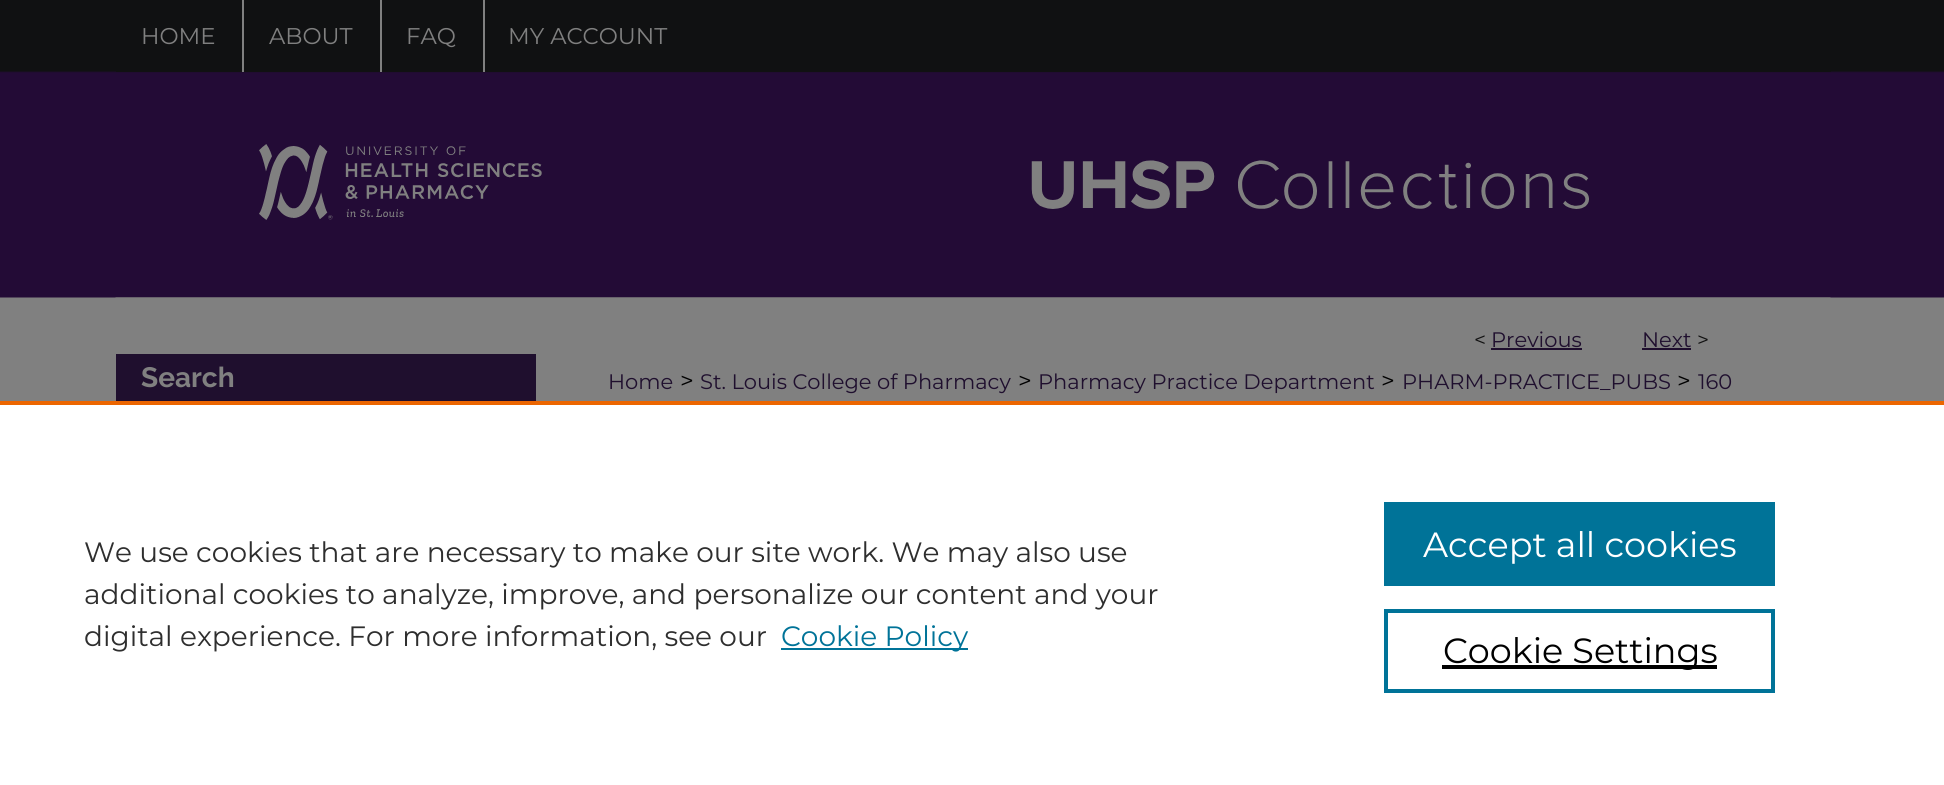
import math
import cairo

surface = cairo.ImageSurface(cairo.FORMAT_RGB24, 1944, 785)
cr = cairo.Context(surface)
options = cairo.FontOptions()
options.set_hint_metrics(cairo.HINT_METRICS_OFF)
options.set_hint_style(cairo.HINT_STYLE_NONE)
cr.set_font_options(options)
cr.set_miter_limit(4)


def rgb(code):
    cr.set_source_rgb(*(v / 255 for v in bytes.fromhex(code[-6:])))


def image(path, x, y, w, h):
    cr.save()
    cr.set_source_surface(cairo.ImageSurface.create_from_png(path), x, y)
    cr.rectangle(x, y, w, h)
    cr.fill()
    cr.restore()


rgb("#808080")
cr.paint()
image("img/1.png", 0, 0, 1944, 298)
for x, y, w, h, color in [
    (116, 71, 1715, 1, "#111112"),
    (242, 0, 2, 72, "#808080"),
    (380, 0, 2, 72, "#808080"),
    (483, 0, 2, 72, "#808080"),
]:
    rgb(color)
    cr.rectangle(x, y, w, h)
    cr.fill()
image("img/2.png", 259, 144, 1330, 76)
image("img/3.png", 115, 297, 1716, 1)
for x, y, w, h, color in [
    (116, 354, 420, 47, "#1f0f2e"),
    (1491, 348, 91, 2, "#1f0f2e"),
    (1642, 348, 49, 2, "#1f0f2e"),
    (0, 405, 1944, 380, "#ffffff"),
    (0, 401, 1944, 4, "#eb6500"),
    (781, 648, 187, 2, "#007398"),
    (1384, 502, 391, 84, "#007398"),
]:
    rgb(color)
    cr.rectangle(x, y, w, h)
    cr.fill()
cr.rectangle(1386, 611, 387, 80)
cr.set_line_width(4)
cr.stroke()
rgb("#000000")
cr.rectangle(1442, 665, 275, 4)
cr.fill()
cr.select_font_face("Montserrat")
cr.set_font_size(22.75)
rgb("#808080")
for x, y, s in [
    (141, 44, "HOME"),
    (269, 44, "ABOUT"),
    (406, 44, "FAQ"),
    (508, 44, "MY ACCOUNT"),
]:
    cr.move_to(x, y)
    cr.show_text(s)
cr.select_font_face("Raleway", cairo.FONT_SLANT_NORMAL, cairo.FONT_WEIGHT_BOLD)
cr.set_font_size(28)
cr.move_to(141, 387)
cr.show_text("Search")
cr.select_font_face("Montserrat")
cr.set_font_size(21)
rgb("#111111")
cr.move_to(1474, 347)
cr.show_text("<")
rgb("#1f0f2e")
cr.move_to(1491, 347)
cr.show_text("Previous")
cr.move_to(1642, 347)
cr.show_text("Next")
rgb("#111111")
cr.move_to(1697, 347)
cr.show_text(">")
rgb("#1f0f2e")
cr.move_to(608, 389)
cr.show_text("Home")
cr.set_font_size(24)
rgb("#000000")
cr.move_to(680, 389)
cr.show_text(">")
cr.set_font_size(21)
rgb("#1f0f2e")
cr.move_to(700, 389)
cr.show_text("St. Louis College of Pharmacy")
cr.set_font_size(24)
rgb("#000000")
cr.move_to(1018, 389)
cr.show_text(">")
cr.set_font_size(21)
rgb("#1f0f2e")
cr.move_to(1038, 389)
cr.show_text("Pharmacy Practice Department")
cr.set_font_size(24)
rgb("#000000")
cr.move_to(1381, 389)
cr.show_text(">")
cr.set_font_size(21)
rgb("#1f0f2e")
cr.move_to(1402, 389)
cr.show_text("PHARM-PRACTICE_PUBS")
cr.set_font_size(24)
rgb("#000000")
cr.move_to(1677, 389)
cr.show_text(">")
cr.set_font_size(21)
rgb("#1f0f2e")
cr.move_to(1698, 389)
cr.show_text("160")
cr.set_font_size(28)
rgb("#2e2e2e")
for x, y, s in [
    (84, 562, "We use cookies that are necessary to make our site work. We may also use"),
    (84, 604, "additional cookies to analyze, improve, and personalize our content and your"),
    (84, 646, "digital experience. For more information, see our"),
]:
    cr.move_to(x, y)
    cr.show_text(s)
rgb("#007398")
cr.move_to(781, 646)
cr.show_text("Cookie Policy")
cr.set_font_size(35)
rgb("#ffffff")
cr.move_to(1423, 557)
cr.show_text("Accept all cookies")
rgb("#000000")
cr.move_to(1443, 663)
cr.show_text("Cookie Settings")
surface.write_to_png("page.png")
